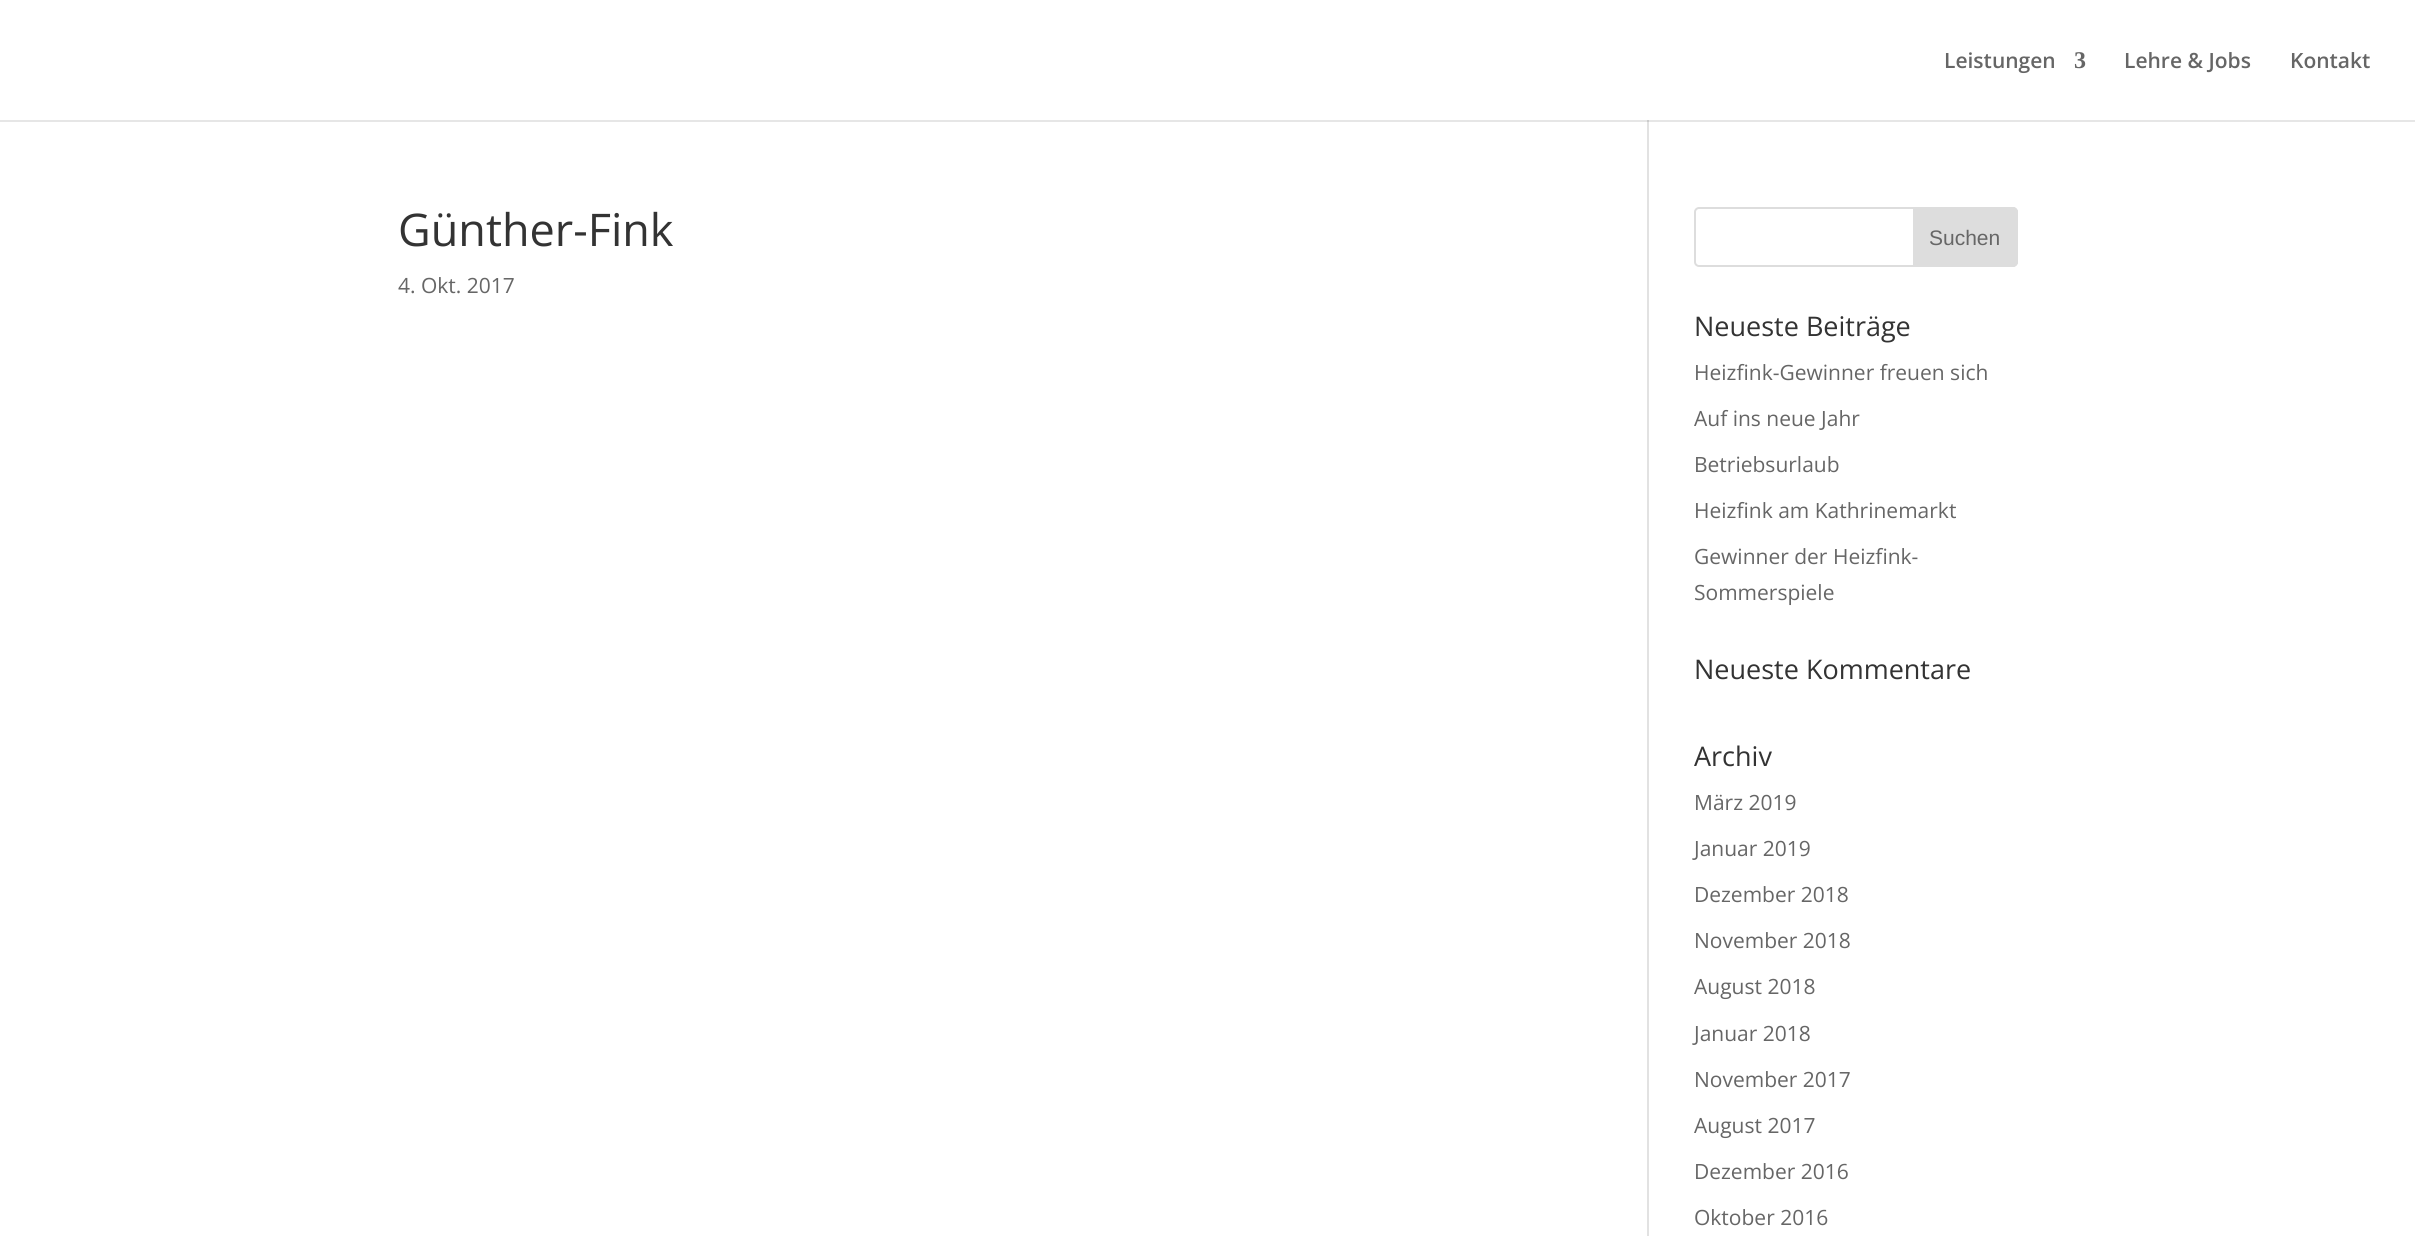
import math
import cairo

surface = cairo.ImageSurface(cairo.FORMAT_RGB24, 2415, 1236)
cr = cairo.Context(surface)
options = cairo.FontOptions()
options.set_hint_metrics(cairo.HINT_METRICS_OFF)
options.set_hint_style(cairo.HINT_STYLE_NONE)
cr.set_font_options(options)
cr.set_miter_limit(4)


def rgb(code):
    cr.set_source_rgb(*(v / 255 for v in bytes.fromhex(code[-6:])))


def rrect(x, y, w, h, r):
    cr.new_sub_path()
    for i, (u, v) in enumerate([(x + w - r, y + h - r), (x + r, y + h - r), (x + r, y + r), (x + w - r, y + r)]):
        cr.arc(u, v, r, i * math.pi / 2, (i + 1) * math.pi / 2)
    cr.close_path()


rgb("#ffffff")
cr.paint()
for x, y, w, h, color in [
    (0, 120, 2415, 2, "#e6e6e6"),
    (1647, 120, 2, 1116, "#e2e2e2"),
    (1647, 120, 2, 2, "#cbcbcb"),
]:
    rgb(color)
    cr.rectangle(x, y, w, h)
    cr.fill()
rrect(1695, 208, 322, 58, 4)
rgb("#dddddd")
cr.stroke()
cr.new_path()
cr.move_to(1914, 208)
cr.line_to(2013, 208)
cr.curve_to(2015, 208, 2017, 210, 2017, 212)
cr.line_to(2017, 262)
cr.curve_to(2017, 264, 2015, 266, 2013, 266)
cr.line_to(1914, 266)
cr.close_path()
cr.fill_preserve()
cr.stroke()
cr.select_font_face("Open Sans SemiBold")
cr.set_font_size(21)
rgb("#666666")
cr.move_to(1944, 68)
cr.show_text("Leistungen")
cr.select_font_face("Liberation Serif", cairo.FONT_SLANT_NORMAL, cairo.FONT_WEIGHT_BOLD)
cr.set_font_size(24)
cr.move_to(2074, 68)
cr.show_text("3")
cr.select_font_face("Open Sans SemiBold")
cr.set_font_size(21)
cr.move_to(2124, 68)
cr.show_text("Lehre & Jobs")
cr.move_to(2290, 68)
cr.show_text("Kontakt")
cr.select_font_face("Open Sans")
cr.set_font_size(45)
rgb("#333333")
cr.move_to(398, 246)
cr.show_text("Günther-Fink")
cr.set_font_size(21)
rgb("#666666")
cr.move_to(398, 293)
cr.show_text("4. Okt. 2017")
cr.select_font_face("Liberation Sans")
cr.move_to(1929, 245)
cr.show_text("Suchen")
cr.select_font_face("Open Sans")
cr.set_font_size(27)
rgb("#333333")
cr.move_to(1694, 336)
cr.show_text("Neueste Beiträge")
cr.set_font_size(21)
rgb("#666666")
for x, y, s in [
    (1694, 380, "Heizfink-Gewinner freuen sich"),
    (1694, 426, "Auf ins neue Jahr"),
    (1694, 472, "Betriebsurlaub"),
    (1694, 518, "Heizfink am Kathrinemarkt"),
    (1694, 564, "Gewinner der Heizfink-"),
    (1694, 600, "Sommerspiele"),
]:
    cr.move_to(x, y)
    cr.show_text(s)
cr.set_font_size(27)
rgb("#333333")
cr.move_to(1694, 679)
cr.show_text("Neueste Kommentare")
cr.move_to(1694, 766)
cr.show_text("Archiv")
cr.set_font_size(21)
rgb("#666666")
for x, y, s in [
    (1694, 810, "März 2019"),
    (1694, 856, "Januar 2019"),
    (1694, 902, "Dezember 2018"),
    (1694, 948, "November 2018"),
    (1694, 994, "August 2018"),
    (1694, 1041, "Januar 2018"),
    (1694, 1087, "November 2017"),
    (1694, 1133, "August 2017"),
    (1694, 1179, "Dezember 2016"),
    (1694, 1225, "Oktober 2016"),
]:
    cr.move_to(x, y)
    cr.show_text(s)
surface.write_to_png("page.png")
